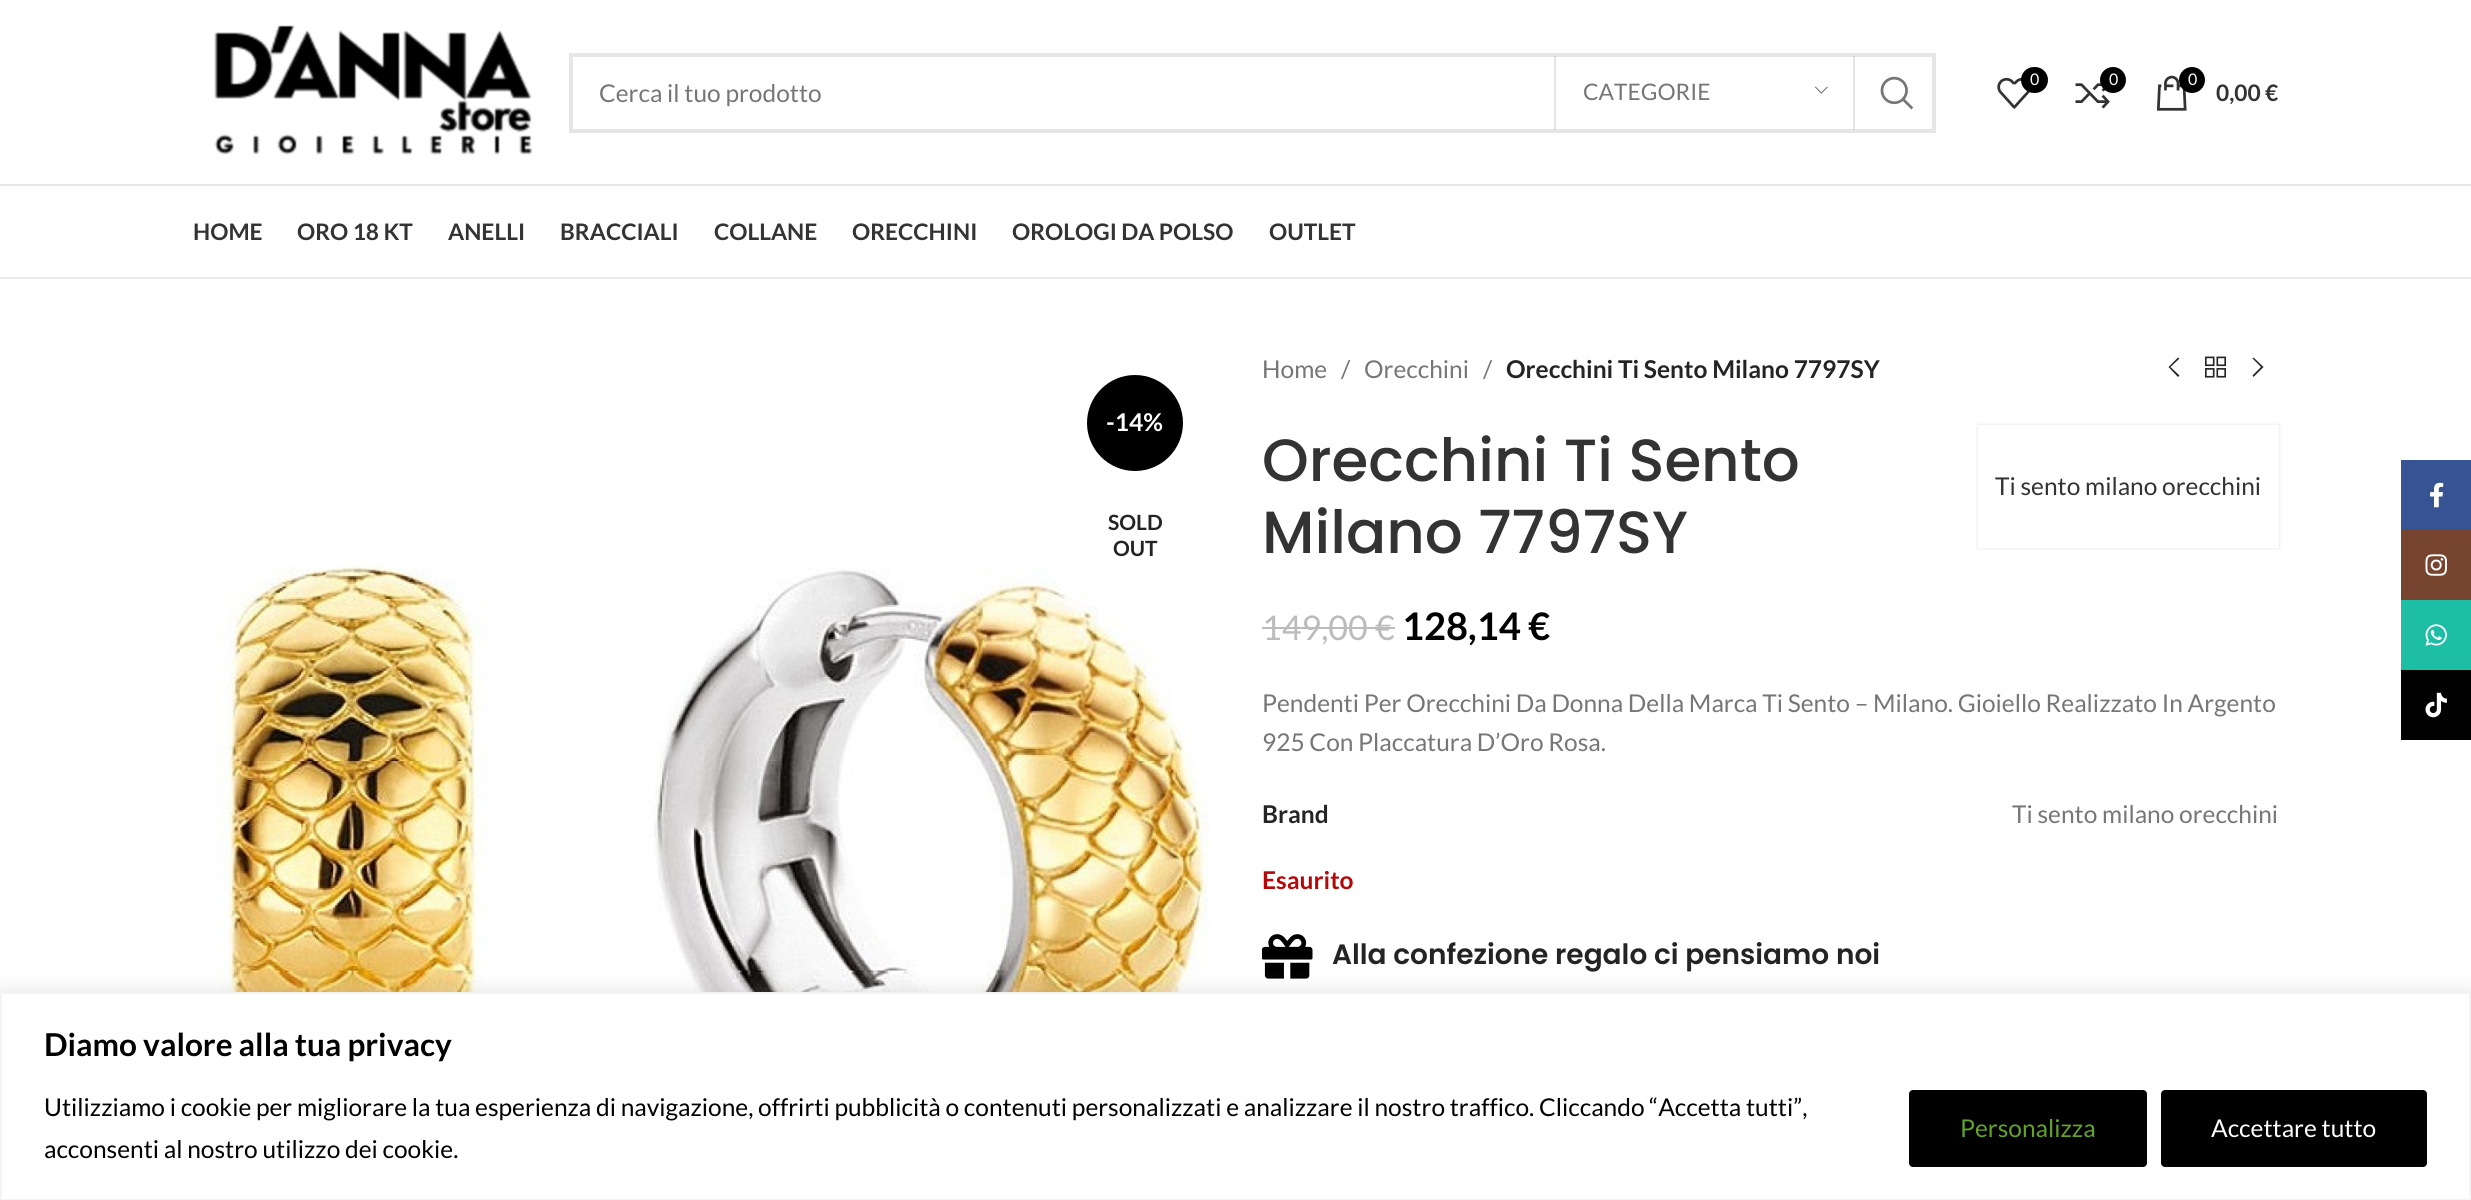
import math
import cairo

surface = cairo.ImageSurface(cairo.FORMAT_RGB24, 2471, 1200)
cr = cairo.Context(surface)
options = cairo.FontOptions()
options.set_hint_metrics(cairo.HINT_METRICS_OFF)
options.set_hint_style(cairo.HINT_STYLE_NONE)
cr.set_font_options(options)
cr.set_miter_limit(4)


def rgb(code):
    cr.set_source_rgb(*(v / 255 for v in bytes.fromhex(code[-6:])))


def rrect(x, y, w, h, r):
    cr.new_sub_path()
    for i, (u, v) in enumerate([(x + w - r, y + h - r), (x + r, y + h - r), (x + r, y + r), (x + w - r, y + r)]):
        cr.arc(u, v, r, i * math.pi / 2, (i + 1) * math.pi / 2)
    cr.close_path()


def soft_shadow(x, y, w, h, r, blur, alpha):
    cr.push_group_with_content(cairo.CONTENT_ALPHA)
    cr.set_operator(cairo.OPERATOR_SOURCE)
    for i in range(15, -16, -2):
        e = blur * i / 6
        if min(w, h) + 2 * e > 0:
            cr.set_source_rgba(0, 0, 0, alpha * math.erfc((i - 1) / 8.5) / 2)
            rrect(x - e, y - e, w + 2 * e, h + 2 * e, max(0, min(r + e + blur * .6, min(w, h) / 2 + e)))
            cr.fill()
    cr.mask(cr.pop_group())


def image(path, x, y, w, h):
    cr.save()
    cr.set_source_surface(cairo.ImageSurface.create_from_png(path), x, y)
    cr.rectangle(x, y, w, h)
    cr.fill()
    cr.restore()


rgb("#ffffff")
cr.paint()
rgb("#e8e8e8")
cr.rectangle(0, 184, 2471, 2)
cr.fill()
image("img/1.png", 214, 25, 319, 130)
cr.rectangle(571, 55, 1363, 76)
rgb("#e6e6e6")
cr.set_line_width(4)
cr.stroke()
cr.set_source_rgba(0, 0, 0, 0.1)
cr.rectangle(1853, 56, 2, 74)
cr.fill()
cr.rectangle(1554, 56, 2, 74)
cr.fill()
image("img/2.png", 1814, 86, 14, 8)
image("img/3.png", 1880, 76, 34, 34)
image("img/4.png", 1997, 77, 33, 32)
rgb("#000000")
rrect(2021, 67, 27, 26, 13)
cr.fill()
image("img/5.png", 2075, 83, 35, 26)
cr.arc(2113, 80, 13, 0, 2 * math.pi)
cr.fill()
image("img/6.png", 2156, 75, 31, 36)
cr.arc(2192, 80, 13, 0, 2 * math.pi)
cr.fill()
rgb("#e8e8e8")
cr.rectangle(0, 277, 2471, 2)
cr.fill()
rgb("#000000")
cr.arc(1135, 423, 48, 0, 2 * math.pi)
cr.fill()
image("img/7.png", 211, 564, 998, 428)
rgb("#242424")
cr.new_path()
cr.move_to(2179.5, 358.5)
cr.line_to(2178, 357.5)
cr.line_to(2168.5, 367)
cr.line_to(2178, 377)
cr.line_to(2179.5, 375.5)
cr.line_to(2170.5, 367)
cr.close_path()
cr.fill()
image("img/8.png", 2205, 356, 21, 22)
cr.new_path()
cr.move_to(2252.5, 358.5)
cr.line_to(2261, 367)
cr.line_to(2252.5, 375.5)
cr.line_to(2253.5, 377)
cr.line_to(2263.5, 367)
cr.line_to(2253.5, 357.5)
cr.close_path()
cr.fill()
rgb("#000000")
soft_shadow(1978, 425, 301, 123, 0, 2, 0.12)
for x, y, w, h, color in [
    (1978, 425, 301, 123, "#ffffff"),
    (1262, 627, 114, 2, "#bbbbbb"),
    (1376, 627, 19, 2, "#bbbbbb"),
]:
    rgb(color)
    cr.rectangle(x, y, w, h)
    cr.fill()
image("img/9.png", 1262, 934, 51, 45)
rgb("#365493")
cr.rectangle(2401, 460, 70, 70)
cr.fill()
image("img/10.png", 2430, 482, 14, 26)
rgb("#774430")
cr.rectangle(2401, 530, 70, 70)
cr.fill()
image("img/11.png", 2425, 554, 22, 22)
rgb("#1ebea5")
cr.rectangle(2401, 600, 70, 70)
cr.fill()
image("img/12.png", 2425, 624, 22, 22)
rgb("#010101")
cr.rectangle(2401, 670, 70, 70)
cr.fill()
image("img/13.png", 2425, 692, 22, 26)
rgb("#acabab")
soft_shadow(0, 991, 2471, 208, 0, 9, 0.3)
rgb("#ffffff")
cr.rectangle(1, 993, 2469, 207)
cr.fill_preserve()
rgb("#f4f4f4")
cr.set_line_width(2)
cr.stroke()
rgb("#000000")
rrect(1911, 1092, 234, 73, 2)
cr.fill_preserve()
cr.set_line_width(4)
cr.stroke()
rrect(2163, 1092, 262, 73, 2)
cr.fill_preserve()
cr.stroke()
cr.select_font_face("Lato")
cr.set_font_size(24.5)
rgb("#767676")
cr.move_to(599, 102)
cr.show_text("Cerca il tuo prodotto")
cr.set_font_size(22.75)
cr.move_to(1583, 100)
cr.show_text("CATEGORIE")
cr.set_font_size(16)
rgb("#ffffff")
for x, y, s in [
    (2030, 85, "0"),
    (2109, 85, "0"),
    (2188, 85, "0"),
]:
    cr.move_to(x, y)
    cr.show_text(s)
cr.select_font_face("Lato", cairo.FONT_SLANT_NORMAL, cairo.FONT_WEIGHT_BOLD)
cr.set_font_size(22.75)
rgb("#333333")
for x, y, s in [
    (2216, 101, "0,00 €"),
    (193, 240, "HOME"),
    (297, 240, "ORO 18 KT"),
    (448, 240, "ANELLI"),
    (560, 240, "BRACCIALI"),
    (714, 240, "COLLANE"),
    (852, 240, "ORECCHINI"),
    (1012, 240, "OROLOGI DA POLSO"),
    (1269, 240, "OUTLET"),
]:
    cr.move_to(x, y)
    cr.show_text(s)
cr.set_font_size(24.5)
rgb("#ffffff")
cr.move_to(1106, 431)
cr.show_text("-14%")
cr.set_font_size(21)
rgb("#242424")
cr.move_to(1108, 530)
cr.show_text("SOLD")
cr.move_to(1113, 556)
cr.show_text("OUT")
cr.select_font_face("Lato")
cr.set_font_size(24.5)
rgb("#767676")
for x, y, s in [
    (1262, 378, "Home"),
    (1341, 378, "/"),
    (1364, 378, "Orecchini"),
    (1483, 378, "/"),
]:
    cr.move_to(x, y)
    cr.show_text(s)
cr.select_font_face("Lato", cairo.FONT_SLANT_NORMAL, cairo.FONT_WEIGHT_BOLD)
rgb("#242424")
cr.move_to(1506, 378)
cr.show_text("Orecchini Ti Sento Milano 7797SY")
cr.select_font_face("Poppins Medium")
cr.set_font_size(59.5)
rgb("#333333")
cr.move_to(1262, 481)
cr.show_text("Orecchini Ti Sento")
cr.move_to(1262, 553)
cr.show_text("Milano 7797SY")
cr.select_font_face("Lato")
cr.set_font_size(24.5)
cr.move_to(1995, 495)
cr.show_text("Ti sento milano orecchini")
cr.set_font_size(34)
rgb("#bbbbbb")
cr.move_to(1262, 640)
cr.show_text("149,00")
cr.move_to(1375, 640)
cr.show_text("€")
cr.select_font_face("Lato", cairo.FONT_SLANT_NORMAL, cairo.FONT_WEIGHT_BOLD)
cr.set_font_size(38)
rgb("#000000")
cr.move_to(1402, 640)
cr.show_text("128,14 €")
cr.select_font_face("Lato")
cr.set_font_size(24.5)
rgb("#767676")
cr.move_to(1262, 712)
cr.show_text("Pendenti Per Orecchini Da Donna Della Marca Ti Sento – Milano. Gioiello Realizzato In Argento")
cr.move_to(1262, 751)
cr.show_text("925 Con Placcatura D’Oro Rosa.")
cr.select_font_face("Lato", cairo.FONT_SLANT_NORMAL, cairo.FONT_WEIGHT_BOLD)
rgb("#242424")
cr.move_to(1262, 823)
cr.show_text("Brand")
cr.select_font_face("Lato")
rgb("#767676")
cr.move_to(2012, 823)
cr.show_text("Ti sento milano orecchini")
cr.select_font_face("Lato", cairo.FONT_SLANT_NORMAL, cairo.FONT_WEIGHT_BOLD)
rgb("#b50808")
cr.move_to(1262, 889)
cr.show_text("Esaurito")
cr.select_font_face("Poppins SemiBold")
cr.set_font_size(28)
rgb("#242424")
cr.move_to(1332, 964)
cr.show_text("Alla confezione regalo ci pensiamo noi")
cr.select_font_face("Lato", cairo.FONT_SLANT_NORMAL, cairo.FONT_WEIGHT_BOLD)
cr.set_font_size(31.5)
rgb("#000000")
cr.move_to(44, 1056)
cr.show_text("Diamo valore alla tua privacy")
cr.select_font_face("Lato")
cr.set_font_size(24.5)
cr.move_to(44, 1116)
cr.show_text("Utilizziamo i cookie per migliorare la tua esperienza di navigazione, offrirti pubblicità o contenuti personalizzati e analizzare il nostro traffico. Cliccando “Accetta tutti”,")
cr.move_to(44, 1158)
cr.show_text("acconsenti al nostro utilizzo dei cookie.")
rgb("#62a329")
cr.move_to(1960, 1137)
cr.show_text("Personalizza")
rgb("#ffffff")
cr.move_to(2211, 1137)
cr.show_text("Accettare tutto")
surface.write_to_png("page.png")
